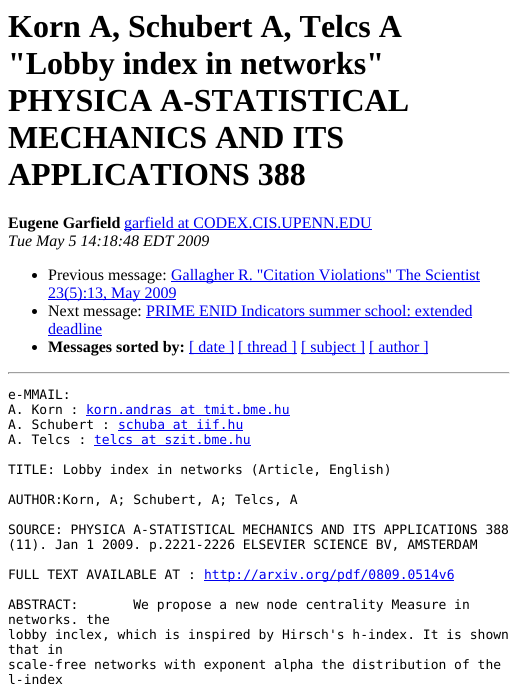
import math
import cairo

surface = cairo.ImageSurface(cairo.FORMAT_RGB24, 518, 684)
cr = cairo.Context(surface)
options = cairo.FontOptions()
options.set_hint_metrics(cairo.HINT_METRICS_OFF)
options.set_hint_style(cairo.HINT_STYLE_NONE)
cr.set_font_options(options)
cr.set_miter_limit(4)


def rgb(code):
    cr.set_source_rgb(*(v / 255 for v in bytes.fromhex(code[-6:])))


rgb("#ffffff")
cr.paint()
rgb("#0000ee")
cr.rectangle(124, 229, 248, 1)
cr.fill()
rgb("#000000")
cr.arc(34.5, 275.5, 2.5, 0, 2 * math.pi)
cr.fill()
rgb("#0000ee")
cr.rectangle(171, 281, 309, 1)
cr.fill()
cr.rectangle(48, 299, 128, 1)
cr.fill()
rgb("#000000")
cr.arc(34.5, 311.5, 2.5, 0, 2 * math.pi)
cr.fill()
rgb("#0000ee")
cr.rectangle(146, 317, 326, 1)
cr.fill()
cr.rectangle(48, 335, 54, 1)
cr.fill()
rgb("#000000")
cr.arc(34.5, 347.5, 2.5, 0, 2 * math.pi)
cr.fill()
for x, y, w, h, color in [
    (189, 353, 45, 1, "#0000ee"),
    (238, 353, 59, 1, "#0000ee"),
    (301, 353, 64, 1, "#0000ee"),
    (369, 353, 59, 1, "#0000ee"),
    (8, 372, 502, 1, "#9f9f9f"),
    (509, 372, 1, 2, "#eeeeee"),
    (8, 373, 502, 1, "#eeeeee"),
    (8, 372, 1, 2, "#9f9f9f"),
    (86, 415, 204, 1, "#0000ee"),
    (118, 430, 125, 1, "#0000ee"),
    (94, 445, 157, 1, "#0000ee"),
    (204, 580, 250, 1, "#0000ee"),
]:
    rgb(color)
    cr.rectangle(x, y, w, h)
    cr.fill()
cr.select_font_face("Liberation Serif", cairo.FONT_SLANT_NORMAL, cairo.FONT_WEIGHT_BOLD)
cr.set_font_size(32)
rgb("#000000")
for x, y, s in [
    (8, 37, "Korn A, Schubert A, Telcs A"),
    (8, 74, "\"Lobby index in networks\""),
    (8, 111, "PHYSICA A-STATISTICAL"),
    (8, 148, "MECHANICS AND ITS"),
    (8, 185, "APPLICATIONS 388"),
]:
    cr.move_to(x, y)
    cr.show_text(s)
cr.set_font_size(16)
cr.move_to(8, 228)
cr.show_text("Eugene Garfield")
cr.select_font_face("Liberation Serif")
rgb("#0000ee")
cr.move_to(124, 228)
cr.show_text("garfield at CODEX.CIS.UPENN.EDU")
cr.select_font_face("Liberation Serif", cairo.FONT_SLANT_ITALIC)
rgb("#000000")
cr.move_to(8, 246)
cr.show_text("Tue May 5 14:18:48 EDT 2009")
cr.select_font_face("Liberation Serif")
cr.move_to(48, 280)
cr.show_text("Previous message:")
rgb("#0000ee")
cr.move_to(171, 280)
cr.show_text("Gallagher R. \"Citation Violations\" The Scientist")
cr.move_to(48, 298)
cr.show_text("23(5):13, May 2009")
rgb("#000000")
cr.move_to(48, 316)
cr.show_text("Next message:")
rgb("#0000ee")
cr.move_to(146, 316)
cr.show_text("PRIME ENID Indicators summer school: extended")
cr.move_to(48, 334)
cr.show_text("deadline")
cr.select_font_face("Liberation Serif", cairo.FONT_SLANT_NORMAL, cairo.FONT_WEIGHT_BOLD)
rgb("#000000")
cr.move_to(48, 352)
cr.show_text("Messages sorted by:")
cr.select_font_face("Liberation Serif")
rgb("#0000ee")
for x, y, s in [
    (189, 352, "[ date ]"),
    (238, 352, "[ thread ]"),
    (301, 352, "[ subject ]"),
    (369, 352, "[ author ]"),
]:
    cr.move_to(x, y)
    cr.show_text(s)
cr.select_font_face("DejaVu Sans Mono")
cr.set_font_size(13)
rgb("#000000")
cr.move_to(8, 399)
cr.show_text("e-MMAIL:")
cr.move_to(8, 414)
cr.show_text("A. Korn :")
rgb("#0000ee")
cr.move_to(86, 414)
cr.show_text("korn.andras at tmit.bme.hu")
rgb("#000000")
cr.move_to(8, 429)
cr.show_text("A. Schubert :")
rgb("#0000ee")
cr.move_to(118, 429)
cr.show_text("schuba at iif.hu")
rgb("#000000")
cr.move_to(8, 444)
cr.show_text("A. Telcs :")
rgb("#0000ee")
cr.move_to(94, 444)
cr.show_text("telcs at szit.bme.hu")
rgb("#000000")
for x, y, s in [
    (8, 474, "TITLE: Lobby index in networks (Article, English)"),
    (8, 504, "AUTHOR:Korn, A; Schubert, A; Telcs, A"),
    (8, 534, "SOURCE: PHYSICA A-STATISTICAL MECHANICS AND ITS APPLICATIONS 388"),
    (8, 549, "(11). Jan 1 2009. p.2221-2226 ELSEVIER SCIENCE BV, AMSTERDAM"),
    (8, 579, "FULL TEXT AVAILABLE AT :"),
]:
    cr.move_to(x, y)
    cr.show_text(s)
rgb("#0000ee")
cr.move_to(204, 579)
cr.show_text("http://arxiv.org/pdf/0809.0514v6")
rgb("#000000")
for x, y, s in [
    (8, 609, "ABSTRACT:       We propose a new node centrality Measure in"),
    (8, 624, "networks. the"),
    (8, 639, "lobby inclex, which is inspired by Hirsch's h-index. It is shown"),
    (8, 654, "that in"),
    (8, 669, "scale-free networks with exponent alpha the distribution of the"),
    (8, 684, "l-index"),
]:
    cr.move_to(x, y)
    cr.show_text(s)
surface.write_to_png("page.png")
